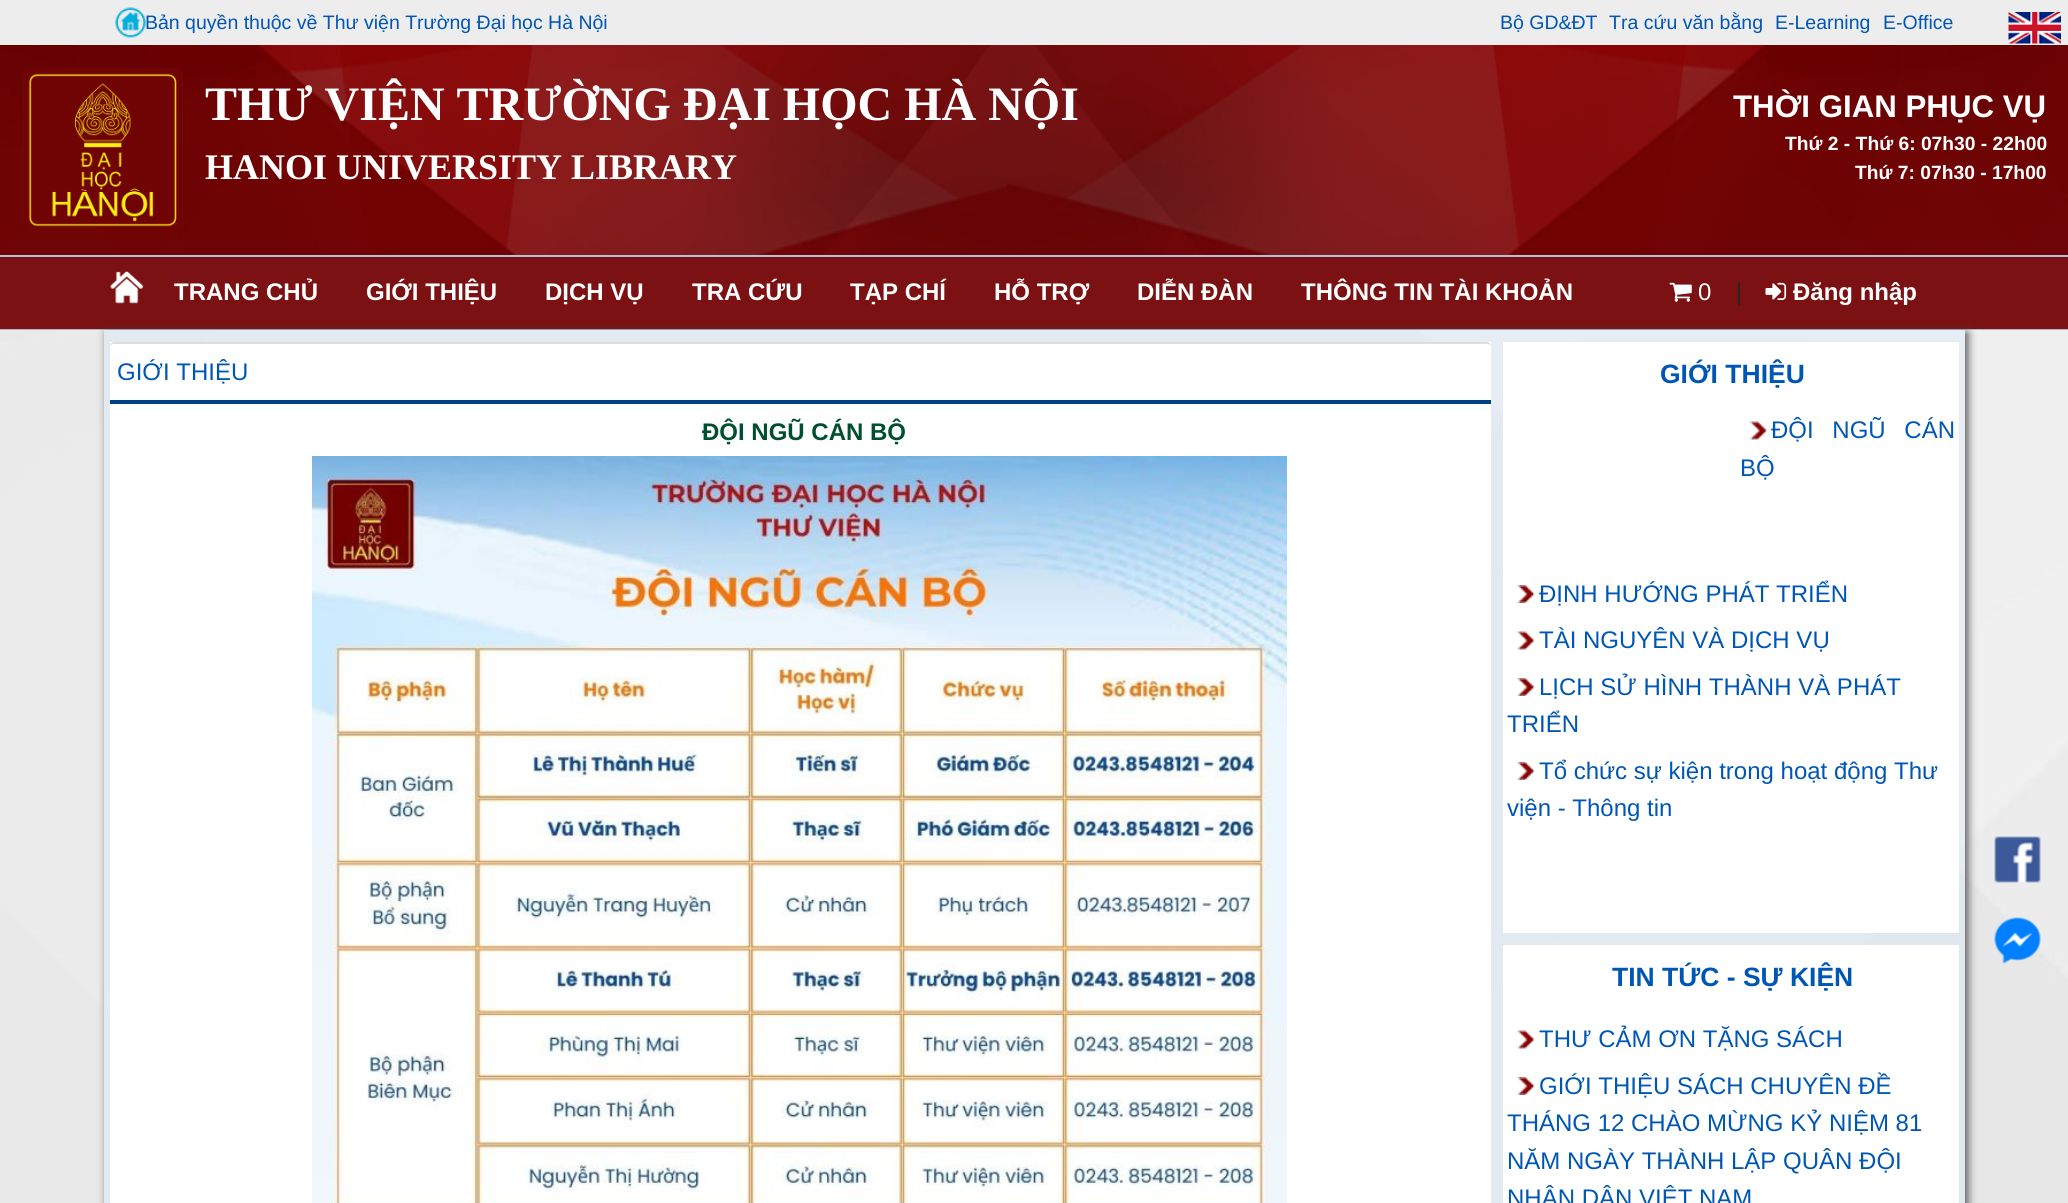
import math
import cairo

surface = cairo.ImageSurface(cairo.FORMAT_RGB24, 2068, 1203)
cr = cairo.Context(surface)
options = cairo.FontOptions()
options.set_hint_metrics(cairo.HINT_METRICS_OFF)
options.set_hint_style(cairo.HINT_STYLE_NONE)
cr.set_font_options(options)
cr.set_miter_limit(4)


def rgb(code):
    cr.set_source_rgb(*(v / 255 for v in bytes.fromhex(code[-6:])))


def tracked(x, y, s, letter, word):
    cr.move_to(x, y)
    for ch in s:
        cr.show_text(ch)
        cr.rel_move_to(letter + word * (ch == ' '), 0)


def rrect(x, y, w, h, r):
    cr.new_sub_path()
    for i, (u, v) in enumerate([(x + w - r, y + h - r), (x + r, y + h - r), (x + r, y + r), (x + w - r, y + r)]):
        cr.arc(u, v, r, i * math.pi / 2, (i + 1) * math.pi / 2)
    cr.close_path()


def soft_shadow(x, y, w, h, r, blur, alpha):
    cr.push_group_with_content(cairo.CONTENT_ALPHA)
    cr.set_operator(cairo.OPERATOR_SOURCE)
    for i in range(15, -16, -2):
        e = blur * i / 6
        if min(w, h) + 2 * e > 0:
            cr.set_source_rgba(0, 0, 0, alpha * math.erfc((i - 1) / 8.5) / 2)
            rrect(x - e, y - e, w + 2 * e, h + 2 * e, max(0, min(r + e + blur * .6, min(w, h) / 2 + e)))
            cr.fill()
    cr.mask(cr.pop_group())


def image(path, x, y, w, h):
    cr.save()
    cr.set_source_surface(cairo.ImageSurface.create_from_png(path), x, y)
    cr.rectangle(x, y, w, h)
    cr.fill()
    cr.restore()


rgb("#ededed")
cr.paint()
image("img/1.png", 115, 7, 31, 31)
image("img/2.png", 0, 45, 2068, 210)
image("img/3.png", 2008, 12, 53, 32)
image("img/4.png", 22, 67, 161, 160)
for x, y, w, h, color in [
    (0, 257, 2068, 72, "#7b1112"),
    (0, 255, 2068, 2, "#b5c2d9"),
    (0, 329, 2068, 1, "#b5c2d9"),
]:
    rgb(color)
    cr.rectangle(x, y, w, h)
    cr.fill()
cr.save()
cr.set_fill_rule(cairo.FILL_RULE_EVEN_ODD)
cr.new_path()
cr.move_to(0, 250)
cr.line_to(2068, 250)
cr.line_to(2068, 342)
cr.line_to(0, 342)
cr.close_path()
cr.move_to(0, 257)
cr.line_to(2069, 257)
cr.line_to(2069, 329)
cr.line_to(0, 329)
cr.close_path()
cr.clip()
rgb("#000000")
soft_shadow(0, 260, 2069, 72, 0, 3, 0.07)
cr.restore()
rgb("#7b1112")
cr.rectangle(104, 328, 1861, 1)
cr.fill()
image("img/5.png", 110, 271, 34, 33)
image("img/6.png", 1669, 282, 23, 20)
image("img/7.png", 1765, 282, 22, 18)
image("img/8.png", 0, 330, 2068, 873)
cr.save()
cr.set_fill_rule(cairo.FILL_RULE_EVEN_ODD)
cr.new_path()
cr.move_to(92, 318)
cr.line_to(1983, 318)
cr.line_to(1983, 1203)
cr.line_to(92, 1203)
cr.close_path()
cr.move_to(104, 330)
cr.line_to(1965, 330)
cr.line_to(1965, 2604)
cr.line_to(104, 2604)
cr.close_path()
cr.clip()
rgb("#555555")
soft_shadow(107, 333, 1861, 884, 0, 4.5, 1)
cr.restore()
cr.set_source_rgba(0.835, 0.914, 0.992, 0.35)
cr.rectangle(104, 330, 1861, 873)
cr.fill()
rgb("#ffffff")
cr.rectangle(110, 342, 1381, 861)
cr.fill()
rgb("#dddddd")
cr.new_path()
cr.move_to(114, 342)
cr.curve_to(112, 342, 110, 344, 110, 346)
cr.curve_to(110, 345, 112, 344, 114, 344)
cr.line_to(1486, 344)
cr.curve_to(1489, 344, 1491, 345, 1491, 346)
cr.curve_to(1491, 344, 1489, 342, 1486, 342)
cr.close_path()
cr.fill()
rgb("#004281")
cr.rectangle(110, 400, 1381, 4)
cr.fill()
image("img/9.png", 312, 456, 975, 747)
rgb("#ffffff")
cr.rectangle(1503, 342, 456, 591)
cr.fill()
image("img/10.png", 1749, 421, 18, 19)
image("img/11.png", 1516, 585, 19, 18)
image("img/12.png", 1516, 631, 19, 19)
image("img/13.png", 1517, 678, 18, 18)
image("img/13.png", 1517, 762, 18, 18)
cr.rectangle(1503, 945, 456, 258)
cr.fill()
image("img/12.png", 1516, 1030, 19, 19)
image("img/13.png", 1517, 1077, 18, 18)
image("img/14.png", 1994, 836, 47, 47)
image("img/15.png", 1994, 917, 47, 47)
cr.select_font_face("Liberation Sans")
cr.set_font_size(19.5)
rgb("#0056b3")
for x, y, s in [
    (145, 29, "Bản quyền thuộc về Thư viện Trường Đại học Hà Nội"),
    (1500, 29, "Bộ GD&ĐT"),
    (1609, 29, "Tra cứu văn bằng"),
    (1775, 29, "E-Learning"),
    (1883, 29, "E-Office"),
]:
    cr.move_to(x, y)
    cr.show_text(s)
cr.select_font_face("Liberation Serif", cairo.FONT_SLANT_NORMAL, cairo.FONT_WEIGHT_BOLD)
cr.set_font_size(48)
rgb("#ffffff")
cr.move_to(205, 120)
cr.show_text("THƯ VIỆN TRƯỜNG ĐẠI HỌC HÀ NỘI")
cr.set_font_size(36)
cr.move_to(205, 179)
cr.show_text("HANOI UNIVERSITY LIBRARY")
cr.select_font_face("Liberation Sans", cairo.FONT_SLANT_NORMAL, cairo.FONT_WEIGHT_BOLD)
cr.set_font_size(31.25)
cr.move_to(1733, 117)
cr.show_text("THỜI GIAN PHỤC VỤ")
cr.set_font_size(19.25)
cr.move_to(1785, 150)
cr.show_text("Thứ 2 - Thứ 6: 07h30 - 22h00")
cr.move_to(1855, 179)
cr.show_text("Thứ 7: 07h30 - 17h00")
cr.set_font_size(24)
for x, y, s in [
    (174, 300, "TRANG CHỦ"),
    (366, 300, "GIỚI THIỆU"),
    (545, 300, "DỊCH VỤ"),
    (692, 300, "TRA CỨU"),
    (850, 300, "TẠP CHÍ"),
    (994, 300, "HỖ TRỢ"),
    (1137, 300, "DIỄN ĐÀN"),
    (1301, 300, "THÔNG TIN TÀI KHOẢN"),
]:
    cr.move_to(x, y)
    cr.show_text(s)
cr.select_font_face("Liberation Sans")
cr.move_to(1698, 300)
cr.show_text("0")
rgb("#212529")
cr.move_to(1736, 300)
cr.show_text("|")
cr.select_font_face("Liberation Sans", cairo.FONT_SLANT_NORMAL, cairo.FONT_WEIGHT_BOLD)
rgb("#ffffff")
cr.move_to(1793, 300)
cr.show_text("Đăng nhập")
cr.select_font_face("Liberation Sans")
rgb("#0056b3")
cr.move_to(117, 380)
cr.show_text("GIỚI THIỆU")
cr.select_font_face("Liberation Sans", cairo.FONT_SLANT_NORMAL, cairo.FONT_WEIGHT_BOLD)
rgb("#004f2e")
cr.move_to(702, 440)
cr.show_text("ĐỘI NGŨ CÁN BỘ")
cr.set_font_size(26.5)
rgb("#0056b3")
cr.move_to(1660, 383)
cr.show_text("GIỚI THIỆU")
cr.select_font_face("Liberation Sans")
cr.set_font_size(24)
tracked(1771, 438, "ĐỘI NGŨ CÁN", 0, 12)
for x, y, s in [
    (1740, 476, "BỘ"),
    (1539, 602, "ĐỊNH HƯỚNG PHÁT TRIỂN"),
    (1539, 648, "TÀI NGUYÊN VÀ DỊCH VỤ"),
    (1539, 695, "LỊCH SỬ HÌNH THÀNH VÀ PHÁT"),
    (1507, 732, "TRIỂN"),
    (1539, 779, "Tổ chức sự kiện trong hoạt động Thư"),
    (1507, 816, "viện - Thông tin"),
]:
    cr.move_to(x, y)
    cr.show_text(s)
cr.select_font_face("Liberation Sans", cairo.FONT_SLANT_NORMAL, cairo.FONT_WEIGHT_BOLD)
cr.set_font_size(26.5)
cr.move_to(1612, 986)
cr.show_text("TIN TỨC - SỰ KIỆN")
cr.select_font_face("Liberation Sans")
cr.set_font_size(24)
for x, y, s in [
    (1539, 1047, "THƯ CẢM ƠN TẶNG SÁCH"),
    (1539, 1094, "GIỚI THIỆU SÁCH CHUYÊN ĐỀ"),
    (1507, 1131, "THÁNG 12 CHÀO MỪNG KỶ NIỆM 81"),
    (1507, 1169, "NĂM NGÀY THÀNH LẬP QUÂN ĐỘI"),
    (1507, 1206, "NHÂN DÂN VIỆT NAM"),
]:
    cr.move_to(x, y)
    cr.show_text(s)
surface.write_to_png("page.png")
